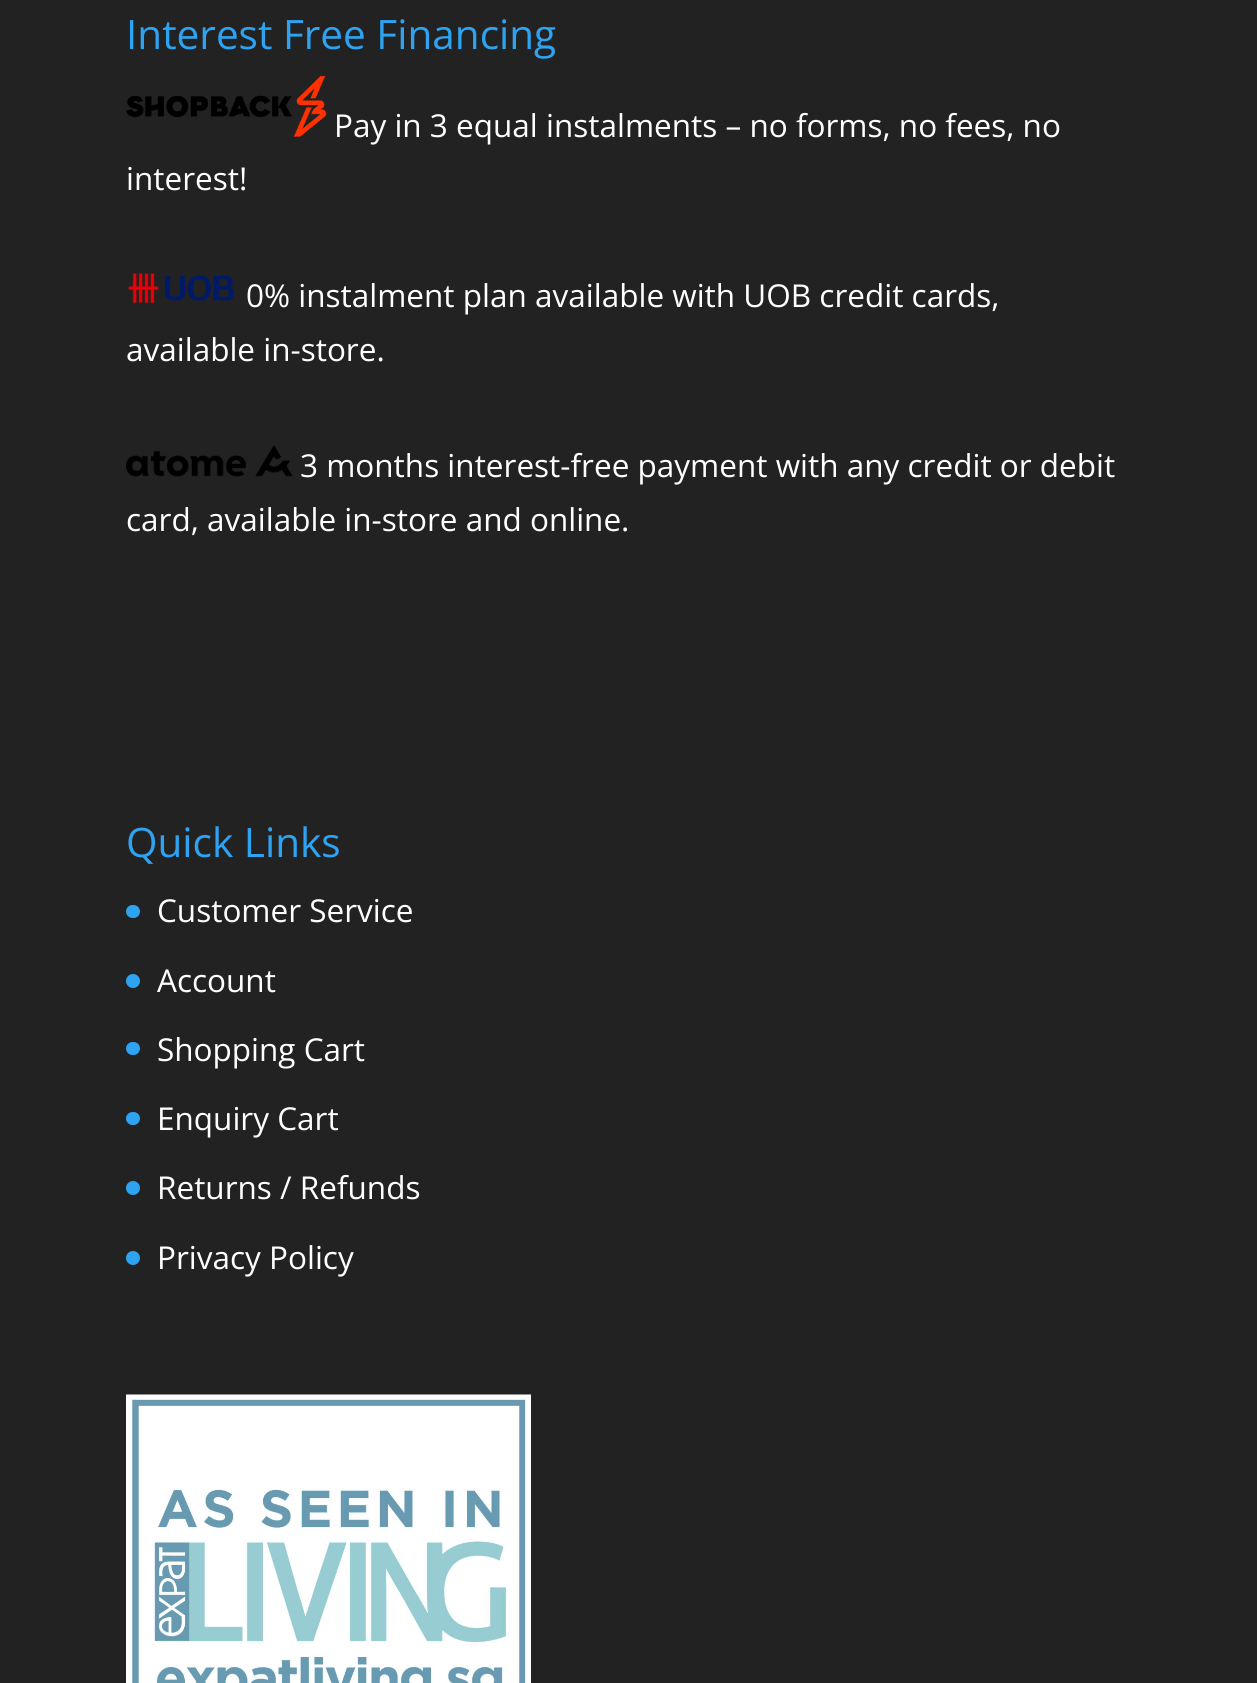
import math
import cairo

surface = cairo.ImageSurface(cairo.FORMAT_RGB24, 1257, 1683)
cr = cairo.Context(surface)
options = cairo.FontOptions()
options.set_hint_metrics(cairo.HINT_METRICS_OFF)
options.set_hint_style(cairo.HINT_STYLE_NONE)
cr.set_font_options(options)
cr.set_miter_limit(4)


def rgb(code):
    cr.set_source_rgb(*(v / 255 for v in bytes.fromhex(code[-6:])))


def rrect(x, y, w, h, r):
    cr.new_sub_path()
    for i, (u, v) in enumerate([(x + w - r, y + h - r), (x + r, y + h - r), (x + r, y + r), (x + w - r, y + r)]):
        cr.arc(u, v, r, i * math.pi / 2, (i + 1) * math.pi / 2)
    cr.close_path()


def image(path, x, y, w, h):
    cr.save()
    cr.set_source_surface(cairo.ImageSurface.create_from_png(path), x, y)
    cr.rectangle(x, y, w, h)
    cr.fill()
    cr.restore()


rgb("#222222")
cr.paint()
image("img/1.png", 126, 76, 201, 61)
image("img/2.png", 128, 273, 107, 31)
image("img/3.png", 126, 445, 167, 32)
rgb("#2ea3f2")
rrect(126, 905, 14, 13, 6.5)
cr.fill()
cr.arc(133, 981, 7, 0, 2 * math.pi)
cr.fill()
rrect(126, 1042, 14, 13, 6.5)
cr.fill()
rrect(126, 1112, 14, 13, 6.5)
cr.fill()
cr.arc(133, 1188, 7, 0, 2 * math.pi)
cr.fill()
cr.arc(133, 1258, 7, 0, 2 * math.pi)
cr.fill()
image("img/4.png", 126, 1394, 405, 289)
cr.select_font_face("Open Sans")
cr.set_font_size(40.5)
cr.move_to(126, 49)
cr.show_text("Interest Free Financing")
cr.set_font_size(31.5)
rgb("#ffffff")
for x, y, s in [
    (334, 137, "Pay in 3 equal instalments – no forms, no fees, no"),
    (126, 190, "interest!"),
    (246, 307, "0% instalment plan available with UOB credit cards,"),
    (126, 361, "available in-store."),
    (300, 477, "3 months interest-free payment with any credit or debit"),
    (126, 531, "card, available in-store and online."),
]:
    cr.move_to(x, y)
    cr.show_text(s)
cr.set_font_size(40.5)
rgb("#2ea3f2")
cr.move_to(126, 857)
cr.show_text("Quick Links")
cr.set_font_size(31.5)
rgb("#ffffff")
for x, y, s in [
    (157, 922, "Customer Service"),
    (157, 992, "Account"),
    (157, 1061, "Shopping Cart"),
    (157, 1130, "Enquiry Cart"),
    (157, 1199, "Returns / Refunds"),
    (157, 1269, "Privacy Policy"),
]:
    cr.move_to(x, y)
    cr.show_text(s)
surface.write_to_png("page.png")
